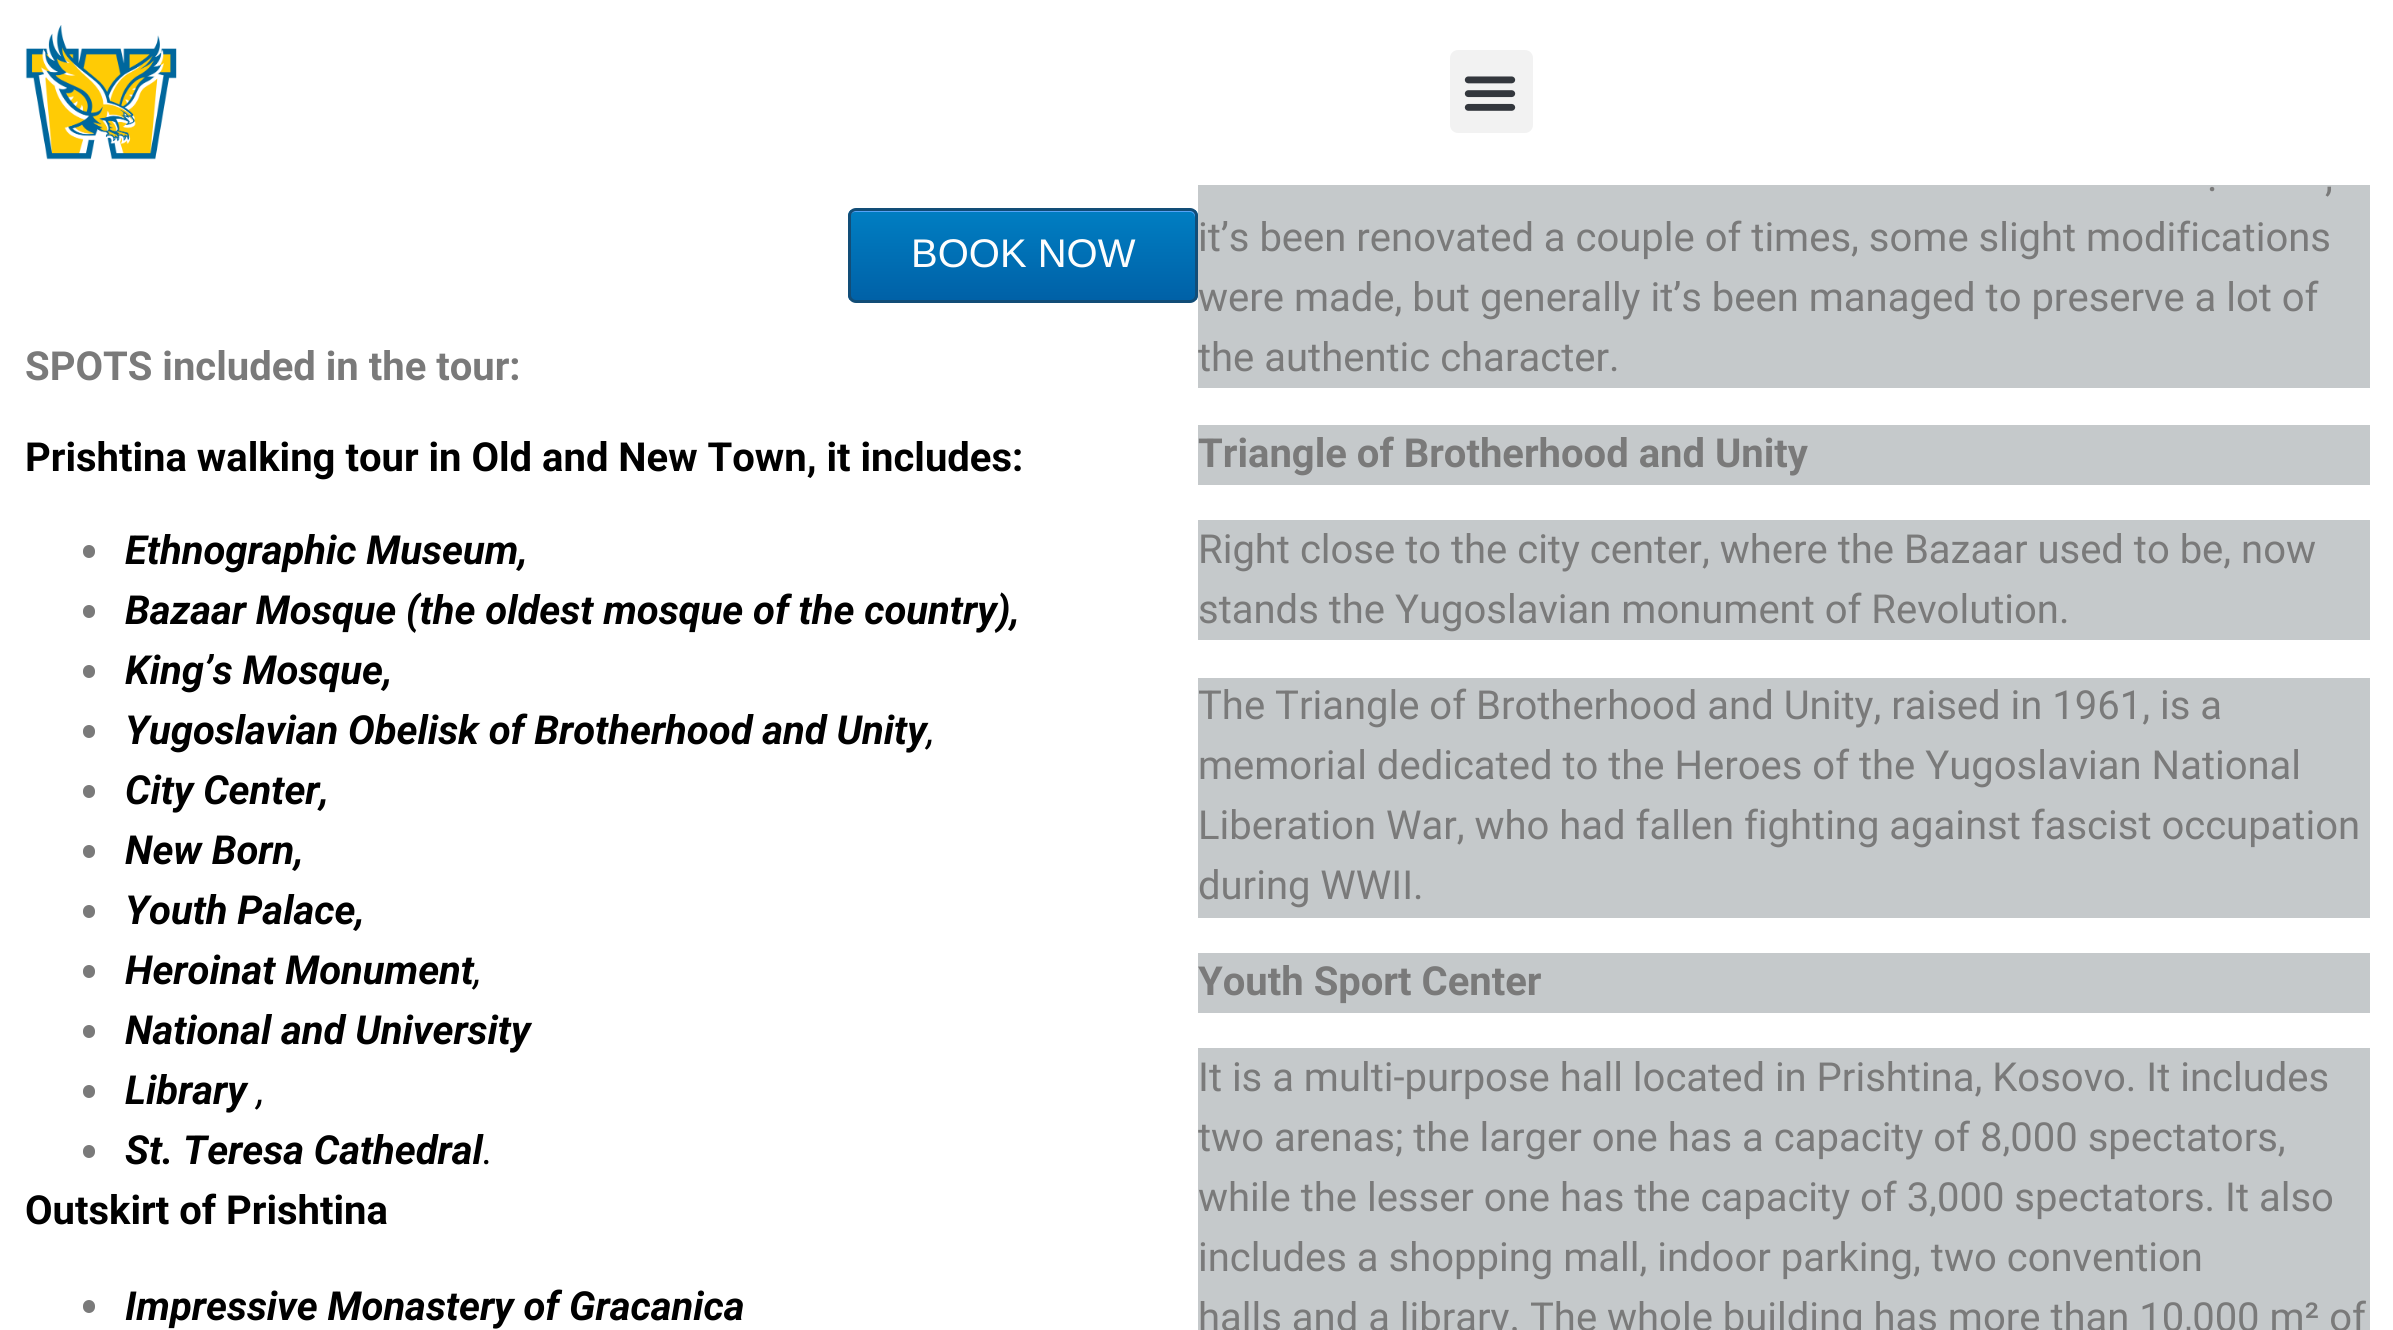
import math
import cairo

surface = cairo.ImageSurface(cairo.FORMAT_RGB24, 2393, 1330)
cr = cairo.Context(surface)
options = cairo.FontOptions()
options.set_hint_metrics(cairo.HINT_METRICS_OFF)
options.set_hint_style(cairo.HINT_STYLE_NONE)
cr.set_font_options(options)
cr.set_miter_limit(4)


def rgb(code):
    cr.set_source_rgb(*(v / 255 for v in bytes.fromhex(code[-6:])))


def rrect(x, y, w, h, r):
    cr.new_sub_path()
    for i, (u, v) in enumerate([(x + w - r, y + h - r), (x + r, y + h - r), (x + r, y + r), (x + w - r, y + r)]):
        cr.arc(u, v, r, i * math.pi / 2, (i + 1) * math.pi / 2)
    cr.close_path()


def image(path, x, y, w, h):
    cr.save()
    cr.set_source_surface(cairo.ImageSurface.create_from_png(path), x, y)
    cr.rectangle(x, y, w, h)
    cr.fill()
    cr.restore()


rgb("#ffffff")
cr.paint()
image("img/1.png", 25, 25, 152, 135)
rgb("#f2f2f2")
rrect(1450, 50, 83, 83, 8)
cr.fill()
image("img/2.png", 1464, 76, 52, 35)
cr.save()
rrect(848, 208, 350, 95, 8)
cr.clip()
gradient = cairo.LinearGradient(1023, 210, 1023, 300)
gradient.add_color_stop_rgba(0.05, 0, 0.49, 0.757, 1)
gradient.add_color_stop_rgba(1, 0, 0.38, 0.655, 1)
cr.set_source(gradient)
cr.rectangle(848, 210, 350, 90)
cr.fill()
cr.restore()
rgb("#54a3f7")
cr.new_path()
cr.move_to(855, 212)
cr.line_to(1190, 212)
cr.curve_to(1193, 212, 1195, 215, 1195, 218)
cr.line_to(1195, 215)
cr.curve_to(1195, 212, 1193, 210, 1190, 210)
cr.line_to(855, 210)
cr.curve_to(852, 210, 850, 212, 850, 215)
cr.line_to(850, 218)
cr.curve_to(850, 215, 852, 212, 855, 212)
cr.close_path()
cr.fill()
rrect(849.5, 209.5, 347, 92, 6.5)
rgb("#124d77")
cr.set_line_width(3)
cr.stroke()
rgb("#7a7a7a")
rrect(83, 545, 12, 13, 6)
cr.fill()
rrect(83, 605, 12, 13, 6)
cr.fill()
rrect(83, 665, 12, 13, 6)
cr.fill()
rrect(83, 725, 12, 13, 6)
cr.fill()
rrect(83, 785, 12, 13, 6)
cr.fill()
rrect(83, 845, 12, 13, 6)
cr.fill()
rrect(83, 905, 12, 13, 6)
cr.fill()
rrect(83, 965, 12, 13, 6)
cr.fill()
rrect(83, 1025, 12, 13, 6)
cr.fill()
rrect(83, 1085, 12, 13, 6)
cr.fill()
rrect(83, 1145, 12, 13, 6)
cr.fill()
rrect(83, 1300, 12, 13, 6)
cr.fill()
for x, y, w, h, color in [
    (1198, 185, 1172, 203, "#c5c9cb"),
    (1198, 425, 1172, 60, "#c5c9cb"),
    (1198, 520, 1172, 120, "#c5c9cb"),
    (1198, 678, 1172, 240, "#c5c9cb"),
    (1198, 953, 1172, 60, "#c5c9cb"),
    (1198, 1048, 1172, 282, "#c5c9cb"),
]:
    rgb(color)
    cr.rectangle(x, y, w, h)
    cr.fill()
cr.select_font_face("Liberation Sans")
cr.set_font_size(40)
rgb("#fdfdfd")
cr.move_to(911, 267)
cr.show_text("BOOK NOW")
cr.select_font_face("Roboto", cairo.FONT_SLANT_NORMAL, cairo.FONT_WEIGHT_BOLD)
rgb("#7a7a7a")
cr.move_to(25, 380)
cr.show_text("SPOTS included in the tour:")
rgb("#000000")
cr.move_to(25, 471)
cr.show_text("Prishtina walking tour in Old and New Town, it includes:")
cr.select_font_face("Roboto", cairo.FONT_SLANT_ITALIC, cairo.FONT_WEIGHT_BOLD)
for x, y, s in [
    (125, 564, "Ethnographic Museum,"),
    (125, 624, "Bazaar Mosque (the oldest mosque of the country),"),
    (125, 684, "King’s Mosque,"),
    (125, 744, "Yugoslavian Obelisk of Brotherhood and Unity"),
]:
    cr.move_to(x, y)
    cr.show_text(s)
cr.select_font_face("Roboto", cairo.FONT_SLANT_ITALIC)
cr.move_to(927, 744)
cr.show_text(",")
cr.select_font_face("Roboto", cairo.FONT_SLANT_ITALIC, cairo.FONT_WEIGHT_BOLD)
for x, y, s in [
    (125, 804, "City Center,"),
    (125, 864, "New Born,"),
    (125, 924, "Youth Palace,"),
    (125, 984, "Heroinat Monument"),
]:
    cr.move_to(x, y)
    cr.show_text(s)
cr.select_font_face("Roboto", cairo.FONT_SLANT_ITALIC)
cr.move_to(474, 984)
cr.show_text(",")
cr.select_font_face("Roboto", cairo.FONT_SLANT_ITALIC, cairo.FONT_WEIGHT_BOLD)
cr.move_to(125, 1044)
cr.show_text("National and University")
cr.move_to(125, 1104)
cr.show_text("Library")
cr.select_font_face("Roboto", cairo.FONT_SLANT_ITALIC)
cr.move_to(257, 1104)
cr.show_text(",")
cr.select_font_face("Roboto", cairo.FONT_SLANT_ITALIC, cairo.FONT_WEIGHT_BOLD)
cr.move_to(125, 1164)
cr.show_text("St. Teresa Cathedral")
cr.select_font_face("Roboto", cairo.FONT_SLANT_ITALIC)
cr.move_to(483, 1164)
cr.show_text(".")
cr.select_font_face("Roboto", cairo.FONT_SLANT_NORMAL, cairo.FONT_WEIGHT_BOLD)
cr.move_to(25, 1224)
cr.show_text("Outskirt of Prishtina")
cr.select_font_face("Roboto", cairo.FONT_SLANT_ITALIC, cairo.FONT_WEIGHT_BOLD)
cr.move_to(125, 1320)
cr.show_text("Impressive Monastery of Gracanica")
cr.select_font_face("Roboto")
rgb("#7a7a7a")
for x, y, s in [
    (2207, 191, "."),
    (2325, 191, ","),
    (1198, 251, "it’s been renovated a couple of times, some slight modifications"),
    (1198, 311, "were made, but generally it’s been managed to preserve a lot of"),
    (1198, 371, "the authentic character."),
]:
    cr.move_to(x, y)
    cr.show_text(s)
cr.select_font_face("Roboto", cairo.FONT_SLANT_NORMAL, cairo.FONT_WEIGHT_BOLD)
cr.move_to(1198, 467)
cr.show_text("Triangle of Brotherhood and Unity")
cr.select_font_face("Roboto")
for x, y, s in [
    (1198, 563, "Right close to the city center, where the Bazaar used to be, now"),
    (1198, 623, "stands the Yugoslavian monument of Revolution."),
    (1198, 719, "The Triangle of Brotherhood and Unity, raised in 1961, is a"),
    (1198, 779, "memorial dedicated to the Heroes of the Yugoslavian National"),
    (1198, 839, "Liberation War, who had fallen fighting against fascist occupation"),
    (1198, 899, "during WWII."),
]:
    cr.move_to(x, y)
    cr.show_text(s)
cr.select_font_face("Roboto", cairo.FONT_SLANT_NORMAL, cairo.FONT_WEIGHT_BOLD)
cr.move_to(1198, 995)
cr.show_text("Youth Sport Center")
cr.select_font_face("Roboto")
for x, y, s in [
    (1198, 1091, "It is a multi-purpose hall located in Prishtina, Kosovo. It includes"),
    (1198, 1151, "two arenas; the larger one has a capacity of 8,000 spectators,"),
    (1198, 1211, "while the lesser one has the capacity of 3,000 spectators. It also"),
    (1198, 1271, "includes a shopping mall, indoor parking, two convention"),
    (1198, 1331, "halls and a library. The whole building has more than 10,000 m² of"),
]:
    cr.move_to(x, y)
    cr.show_text(s)
surface.write_to_png("page.png")
